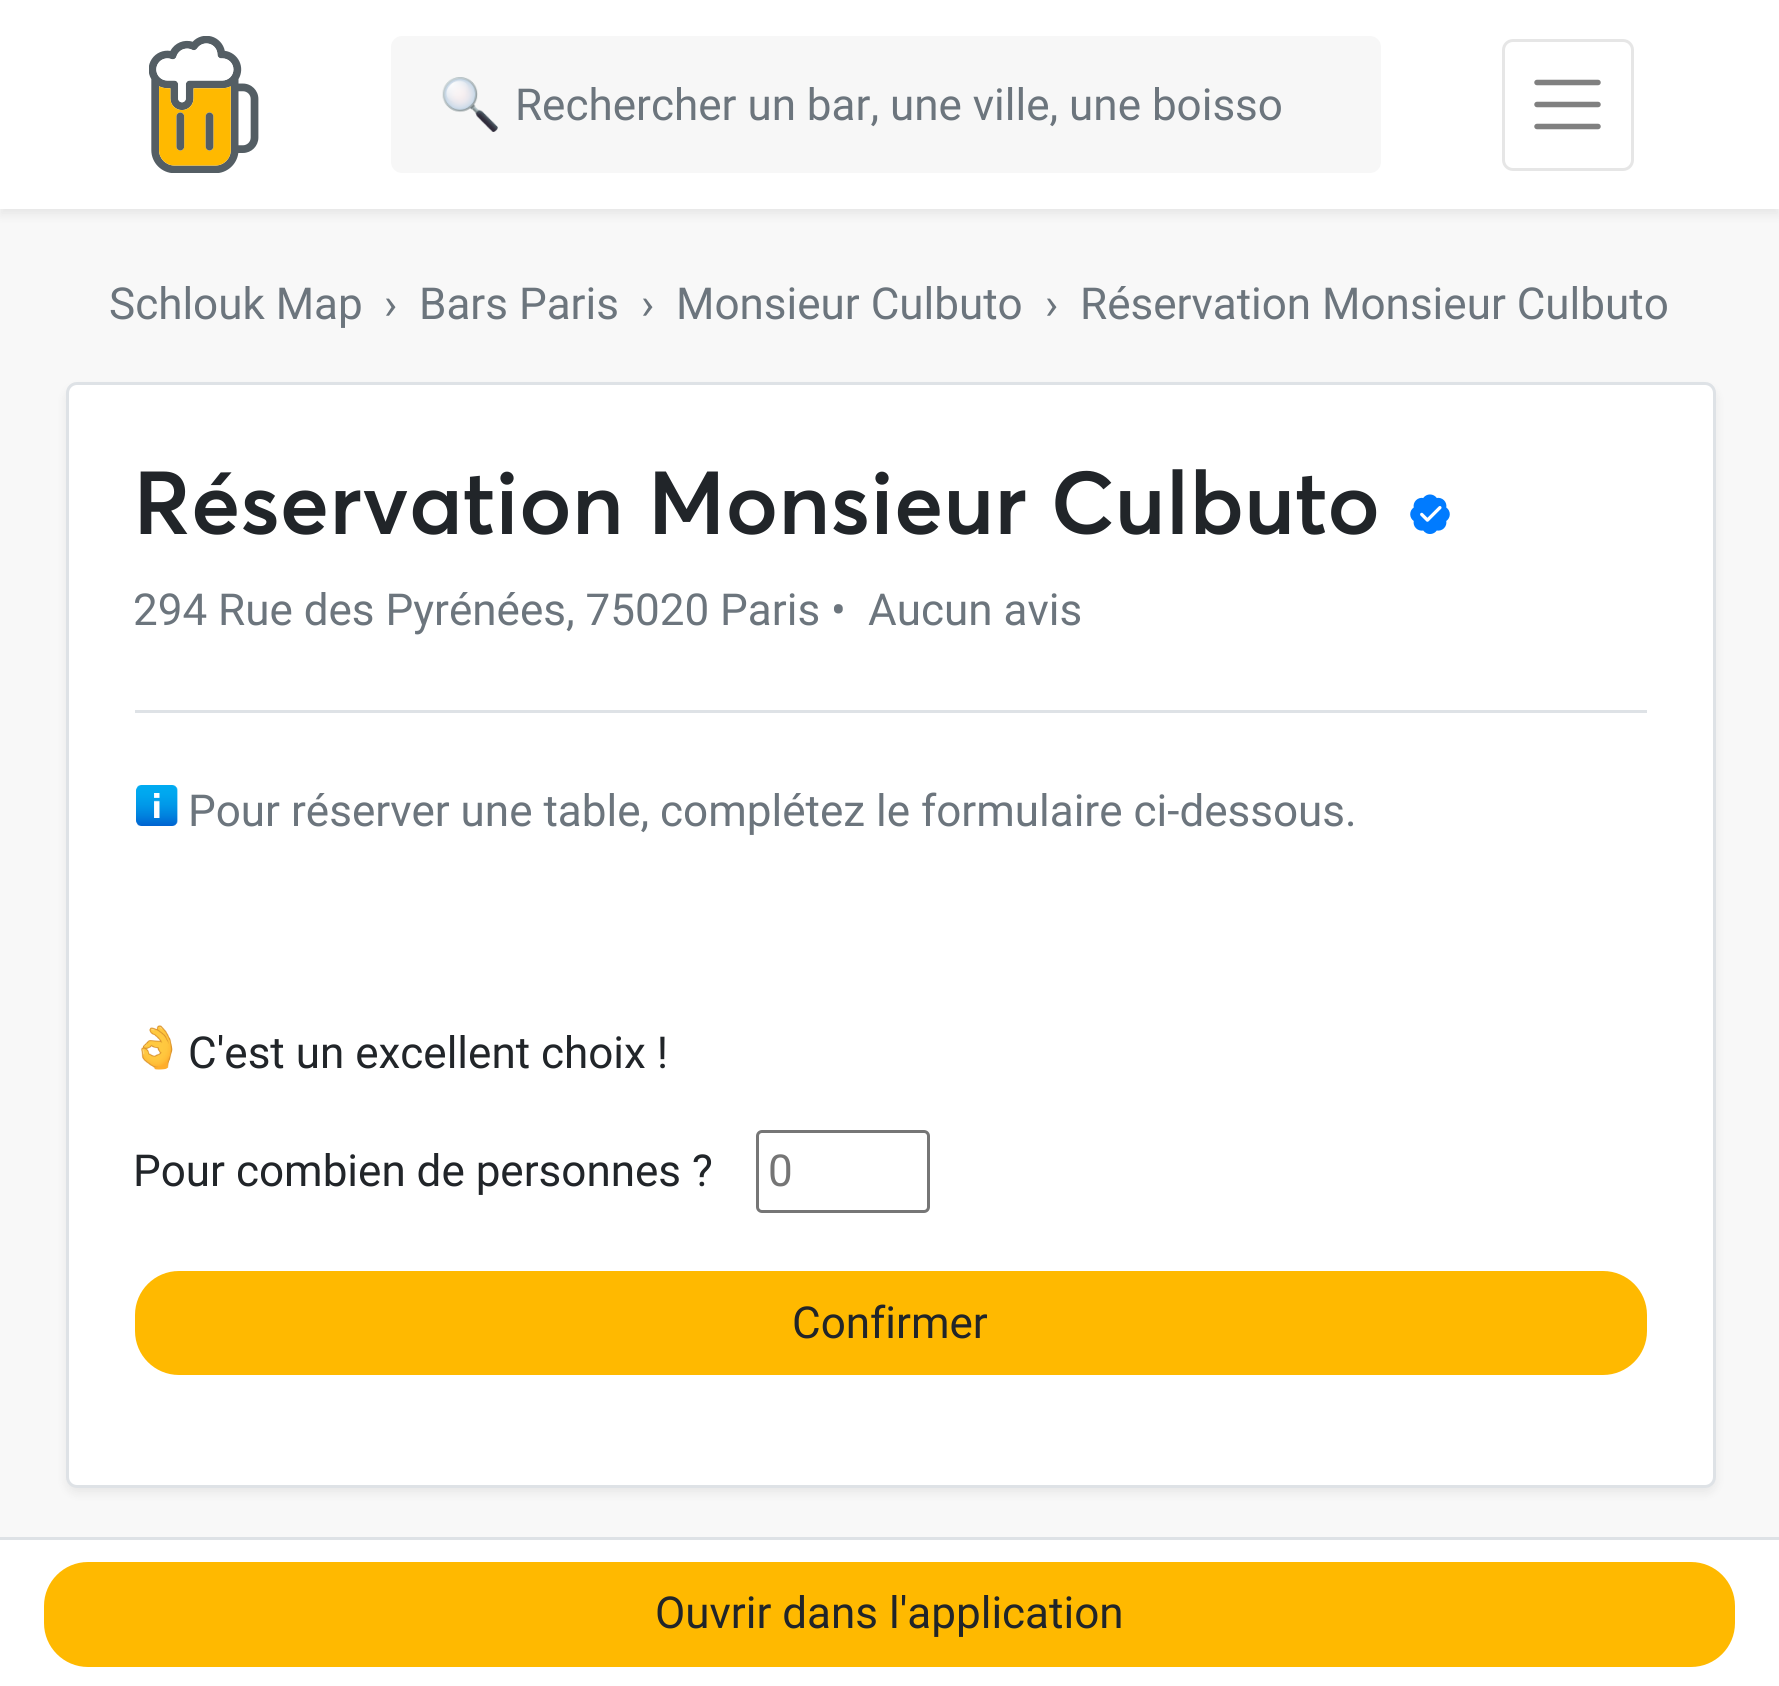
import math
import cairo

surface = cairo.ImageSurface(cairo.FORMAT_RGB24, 1779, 1686)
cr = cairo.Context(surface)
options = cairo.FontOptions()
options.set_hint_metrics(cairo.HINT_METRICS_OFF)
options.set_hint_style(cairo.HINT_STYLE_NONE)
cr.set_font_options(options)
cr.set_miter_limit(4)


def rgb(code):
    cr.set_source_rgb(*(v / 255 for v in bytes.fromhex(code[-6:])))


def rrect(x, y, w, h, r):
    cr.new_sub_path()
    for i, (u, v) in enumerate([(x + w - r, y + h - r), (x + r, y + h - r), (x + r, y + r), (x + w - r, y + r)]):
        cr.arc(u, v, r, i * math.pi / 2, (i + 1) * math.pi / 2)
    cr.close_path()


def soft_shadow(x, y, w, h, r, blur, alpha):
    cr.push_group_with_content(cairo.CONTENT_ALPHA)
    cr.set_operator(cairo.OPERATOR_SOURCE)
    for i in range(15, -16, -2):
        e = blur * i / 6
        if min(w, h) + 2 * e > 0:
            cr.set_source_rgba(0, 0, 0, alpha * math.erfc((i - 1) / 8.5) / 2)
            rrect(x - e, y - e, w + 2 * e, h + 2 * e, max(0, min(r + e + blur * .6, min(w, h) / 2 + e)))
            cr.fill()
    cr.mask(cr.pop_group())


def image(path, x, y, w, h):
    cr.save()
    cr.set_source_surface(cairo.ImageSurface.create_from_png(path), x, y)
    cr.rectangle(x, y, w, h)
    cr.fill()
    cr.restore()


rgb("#f8f8f8")
cr.paint()
rgb("#000000")
soft_shadow(0, 6, 1779, 209, 0, 5.5, 0.07)
rgb("#ffffff")
cr.rectangle(0, 0, 1779, 209)
cr.fill()
image("img/1.png", 149, 36, 110, 137)
rgb("#f7f7f7")
rrect(391, 36, 990, 137, 11)
cr.fill()
image("img/2.png", 442, 77, 56, 55)
rrect(1503.5, 40.5, 129, 129, 9.5)
rgb("#e6e6e6")
cr.set_line_width(3)
cr.stroke()
cr.new_path()
cr.move_to(1537, 82.5)
cr.line_to(1598, 82.5)
cr.move_to(1537, 104.5)
cr.line_to(1598, 104.5)
cr.move_to(1537, 126.5)
cr.line_to(1598, 126.5)
rgb("#808080")
cr.set_line_width(5.5)
cr.set_line_cap(cairo.LINE_CAP_ROUND)
cr.stroke()
rgb("#000000")
soft_shadow(66, 388, 1650, 1105, 11, 5.5, 0.07)
rgb("#ffffff")
rrect(67.5, 383.5, 1647, 1103, 9.5)
cr.fill_preserve()
rgb("#dee2e6")
cr.set_line_width(3)
cr.set_line_cap(cairo.LINE_CAP_BUTT)
cr.stroke()
image("img/3.png", 1410, 494, 40, 40)
cr.rectangle(135, 710, 1512, 3)
cr.fill()
image("img/4.png", 136, 785, 42, 41)
image("img/5.png", 141, 1025, 32, 45)
rrect(757.5, 1131.5, 171, 80, 4.5)
rgb("#767676")
cr.stroke()
rgb("#ffb900")
rrect(136.5, 1272.5, 1509, 101, 42.5)
cr.fill_preserve()
cr.stroke()
rgb("#ffffff")
cr.rectangle(0, 1540, 1779, 146)
cr.fill()
rgb("#dee2e6")
cr.rectangle(0, 1537, 1779, 3)
cr.fill()
rgb("#ffb900")
rrect(45.5, 1563.5, 1688, 102, 42.5)
cr.fill_preserve()
cr.stroke()
cr.select_font_face("Roboto")
cr.set_font_size(44)
rgb("#6c757d")
for x, y, s in [
    (515, 120, "Rechercher un bar, une ville, une boisso"),
    (109, 319, "Schlouk Map"),
    (384, 319, "›"),
    (419, 319, "Bars Paris"),
    (641, 319, "›"),
    (676, 319, "Monsieur Culbuto"),
    (1045, 319, "›  Réservation Monsieur Culbuto"),
]:
    cr.move_to(x, y)
    cr.show_text(s)
cr.select_font_face("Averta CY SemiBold")
cr.set_font_size(88)
rgb("#212529")
cr.move_to(133, 534)
cr.show_text("Réservation Monsieur Culbuto")
cr.select_font_face("Roboto")
cr.set_font_size(44)
rgb("#6c757d")
for x, y, s in [
    (133, 625, "294 Rue des Pyrénées, 75020 Paris •"),
    (868, 625, "Aucun avis"),
    (188, 826, "Pour réserver une table, complétez le formulaire ci-dessous."),
]:
    cr.move_to(x, y)
    cr.show_text(s)
rgb("#212529")
cr.move_to(188, 1068)
cr.show_text("C'est un excellent choix !")
cr.move_to(133, 1186)
cr.show_text("Pour combien de personnes ?")
rgb("#757575")
cr.move_to(768, 1186)
cr.show_text("0")
rgb("#212529")
cr.move_to(792, 1338)
cr.show_text("Confirmer")
cr.move_to(655, 1628)
cr.show_text("Ouvrir dans l'application")
surface.write_to_png("page.png")
